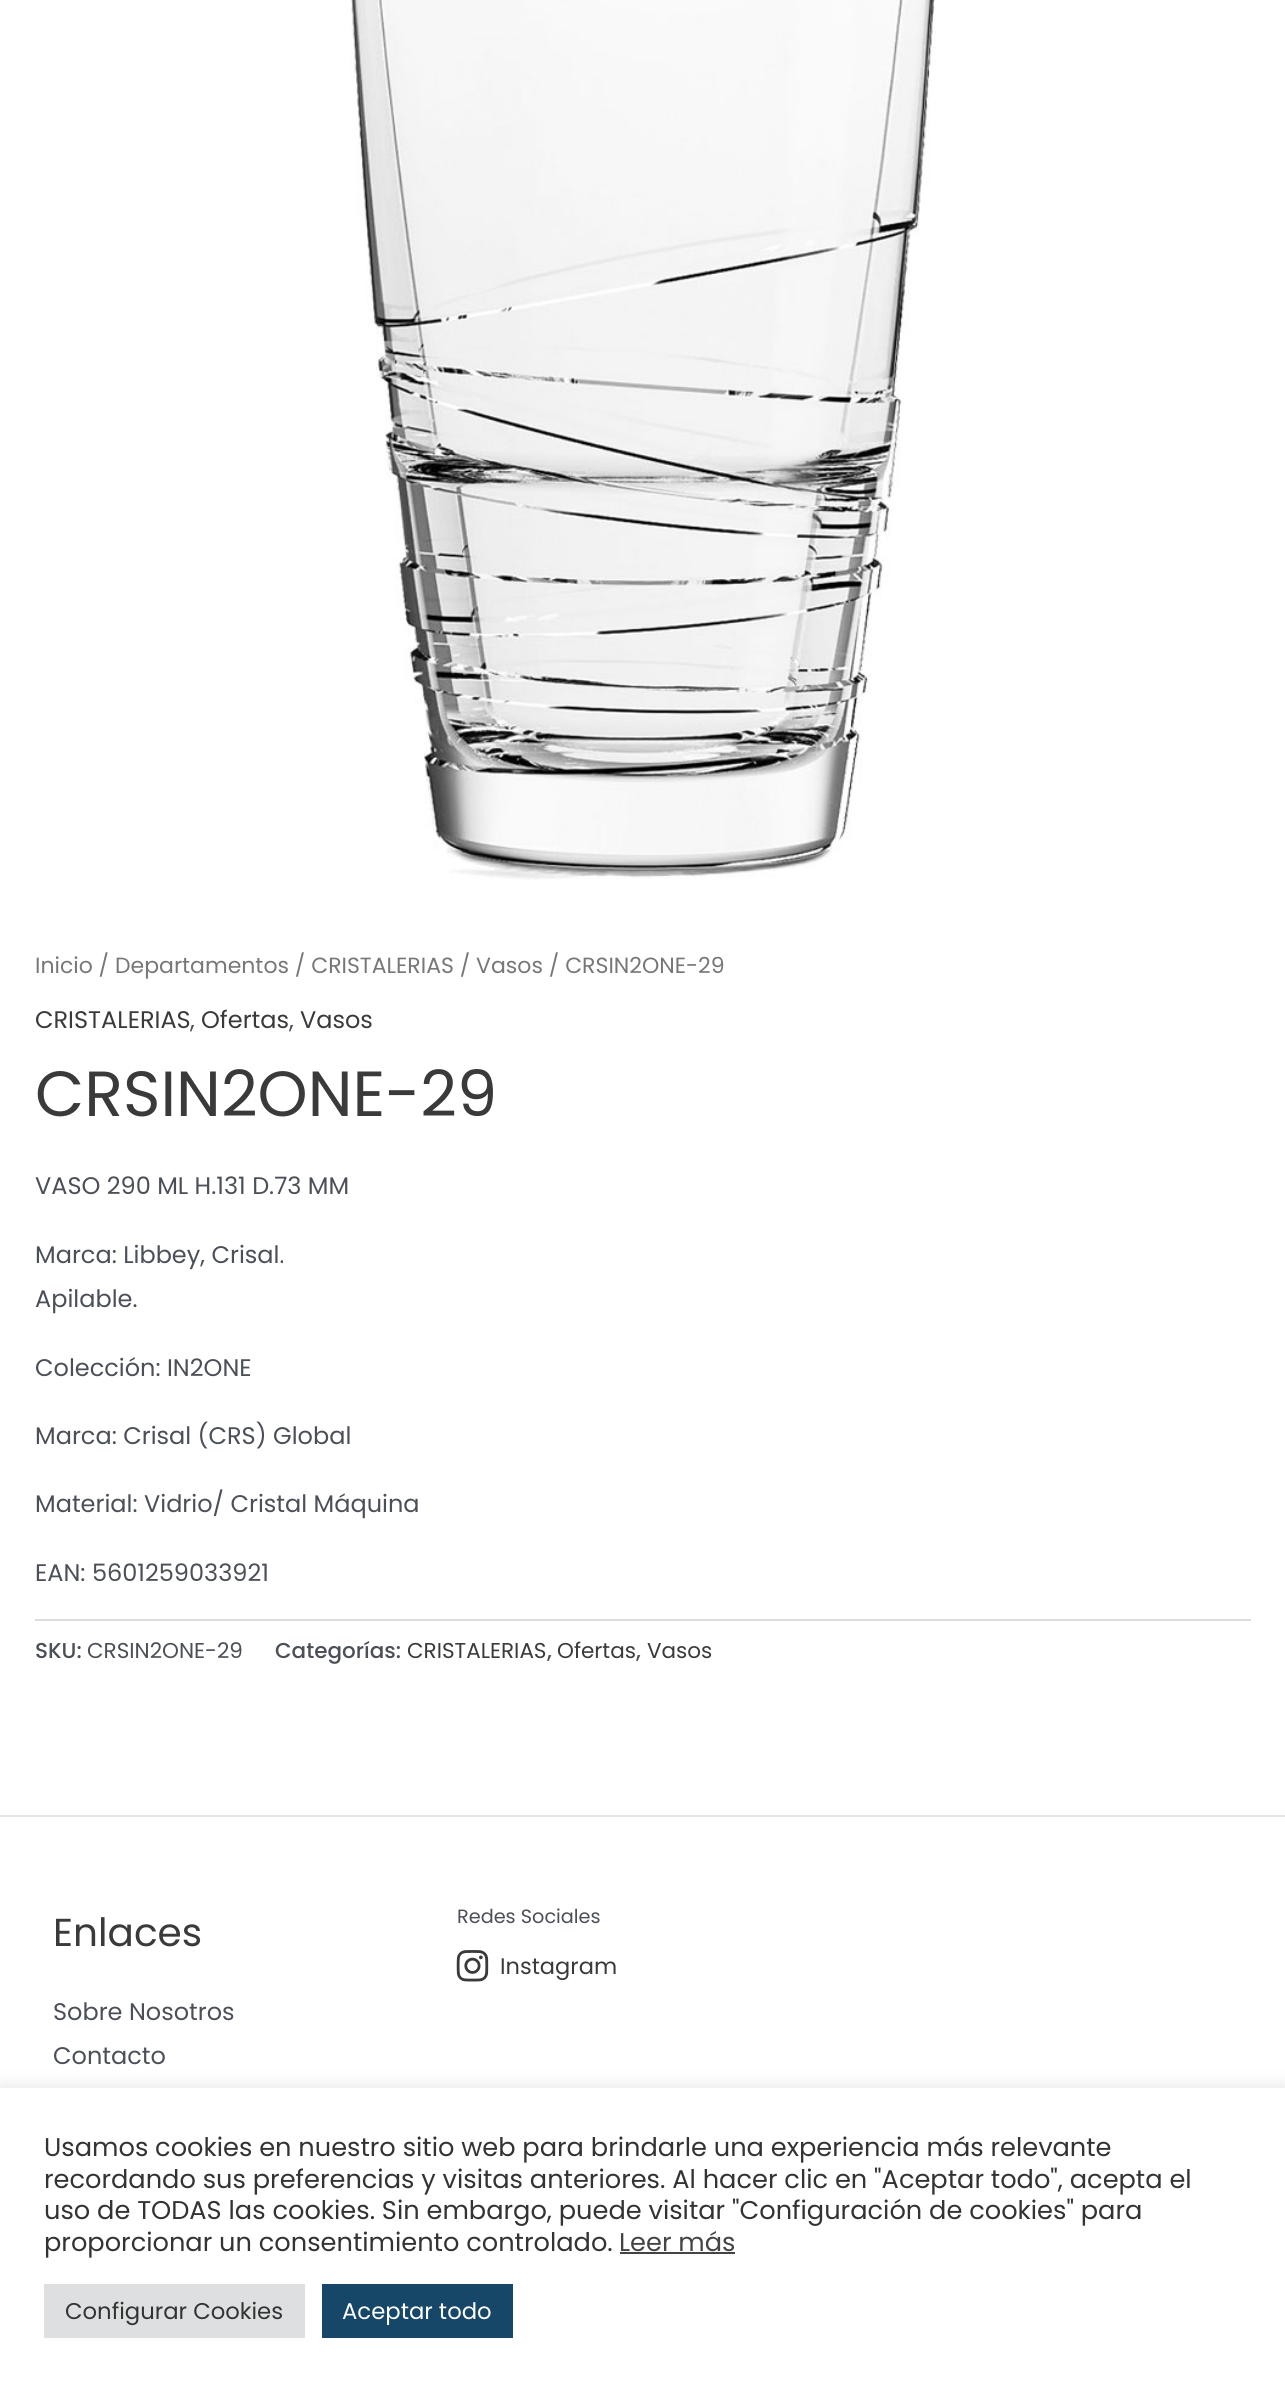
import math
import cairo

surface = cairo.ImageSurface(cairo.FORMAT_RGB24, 1285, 2389)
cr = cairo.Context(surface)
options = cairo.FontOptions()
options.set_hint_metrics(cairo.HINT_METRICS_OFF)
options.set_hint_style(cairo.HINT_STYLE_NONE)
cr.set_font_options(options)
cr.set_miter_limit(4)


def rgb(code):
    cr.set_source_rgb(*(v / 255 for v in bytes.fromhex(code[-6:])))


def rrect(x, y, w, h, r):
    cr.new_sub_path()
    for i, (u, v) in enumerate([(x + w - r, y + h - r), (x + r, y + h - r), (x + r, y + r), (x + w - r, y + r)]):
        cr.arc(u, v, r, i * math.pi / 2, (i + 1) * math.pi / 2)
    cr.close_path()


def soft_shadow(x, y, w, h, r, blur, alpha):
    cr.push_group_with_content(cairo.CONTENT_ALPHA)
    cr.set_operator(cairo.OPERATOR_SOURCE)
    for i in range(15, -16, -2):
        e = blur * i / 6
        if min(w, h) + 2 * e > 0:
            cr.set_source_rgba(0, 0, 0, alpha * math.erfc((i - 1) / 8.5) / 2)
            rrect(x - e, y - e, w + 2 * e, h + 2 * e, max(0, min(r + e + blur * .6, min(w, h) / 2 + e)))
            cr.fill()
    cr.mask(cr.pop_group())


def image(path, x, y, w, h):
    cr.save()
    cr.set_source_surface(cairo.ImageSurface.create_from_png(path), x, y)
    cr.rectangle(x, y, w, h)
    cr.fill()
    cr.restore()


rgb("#ffffff")
cr.paint()
image("img/1.png", 350, 0, 586, 880)
rgb("#dddddd")
cr.rectangle(35, 1619, 1216, 2)
cr.fill()
rgb("#e6e6e6")
cr.rectangle(0, 1815, 1285, 2)
cr.fill()
image("img/2.png", 456, 1950, 33, 32)
rgb("#acabab")
soft_shadow(0, 2086, 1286, 303, 0, 9, 0.3)
for x, y, w, h, color in [
    (0, 2088, 1285, 301, "#ffffff"),
    (620, 2252, 115, 2, "#444444"),
    (44, 2284, 261, 54, "#dedfe0"),
    (322, 2284, 191, 54, "#164768"),
]:
    rgb(color)
    cr.rectangle(x, y, w, h)
    cr.fill()
cr.select_font_face("Poppins")
cr.set_font_size(22)
rgb("#777777")
cr.move_to(35, 973)
cr.show_text("Inicio / Departamentos / CRISTALERIAS / Vasos / CRSIN2ONE-29")
cr.set_font_size(24)
rgb("#3a3a3a")
cr.move_to(35, 1028)
cr.show_text("CRISTALERIAS")
rgb("#4b4f58")
cr.move_to(190, 1028)
cr.show_text(",")
rgb("#3a3a3a")
cr.move_to(201, 1028)
cr.show_text("Ofertas")
rgb("#4b4f58")
cr.move_to(289, 1028)
cr.show_text(",")
rgb("#3a3a3a")
cr.move_to(300, 1028)
cr.show_text("Vasos")
cr.set_font_size(63.75)
cr.move_to(35, 1116)
cr.show_text("CRSIN2ONE-29")
cr.set_font_size(24)
rgb("#4b4f58")
for x, y, s in [
    (35, 1194, "VASO 290 ML H.131 D.73 MM"),
    (35, 1263, "Marca: Libbey, Crisal."),
    (35, 1307, "Apilable."),
    (35, 1376, "Colección: IN2ONE"),
    (35, 1444, "Marca: Crisal (CRS) Global"),
    (35, 1512, "Material: Vidrio/ Cristal Máquina"),
    (35, 1581, "EAN: 5601259033921"),
]:
    cr.move_to(x, y)
    cr.show_text(s)
cr.select_font_face("Poppins Medium")
cr.set_font_size(21.5)
cr.move_to(35, 1658)
cr.show_text("SKU:")
cr.select_font_face("Poppins")
cr.move_to(87, 1658)
cr.show_text("CRSIN2ONE-29")
cr.select_font_face("Poppins Medium")
cr.move_to(275, 1658)
cr.show_text("Categorías:")
cr.select_font_face("Poppins")
rgb("#3a3a3a")
cr.move_to(407, 1658)
cr.show_text("CRISTALERIAS")
cr.select_font_face("Poppins Medium")
rgb("#4b4f58")
cr.move_to(547, 1658)
cr.show_text(",")
cr.select_font_face("Poppins")
rgb("#3a3a3a")
cr.move_to(557, 1658)
cr.show_text("Ofertas")
cr.select_font_face("Poppins Medium")
rgb("#4b4f58")
cr.move_to(636, 1658)
cr.show_text(",")
cr.select_font_face("Poppins")
rgb("#3a3a3a")
cr.move_to(647, 1658)
cr.show_text("Vasos")
cr.set_font_size(39)
cr.move_to(53, 1946)
cr.show_text("Enlaces")
cr.set_font_size(24)
rgb("#4b4f58")
cr.move_to(53, 2020)
cr.show_text("Sobre Nosotros")
cr.move_to(53, 2064)
cr.show_text("Contacto")
cr.set_font_size(19.25)
cr.move_to(457, 1923)
cr.show_text("Redes Sociales")
cr.set_font_size(22.5)
rgb("#3a3a3a")
cr.move_to(500, 1974)
cr.show_text("Instagram")
cr.set_font_size(25.65)
rgb("#333333")
for x, y, s in [
    (44, 2156, "Usamos cookies en nuestro sitio web para brindarle una experiencia más relevante"),
    (44, 2188, "recordando sus preferencias y visitas anteriores. Al hacer clic en \"Aceptar todo\", acepta el"),
    (44, 2219, "uso de TODAS las cookies. Sin embargo, puede visitar \"Configuración de cookies\" para"),
    (44, 2251, "proporcionar un consentimiento controlado."),
]:
    cr.move_to(x, y)
    cr.show_text(s)
rgb("#444444")
cr.move_to(619, 2251)
cr.show_text("Leer más")
cr.set_font_size(22.75)
rgb("#333333")
cr.move_to(65, 2319)
cr.show_text("Configurar Cookies")
rgb("#ffffff")
cr.move_to(342, 2319)
cr.show_text("Aceptar todo")
surface.write_to_png("page.png")
